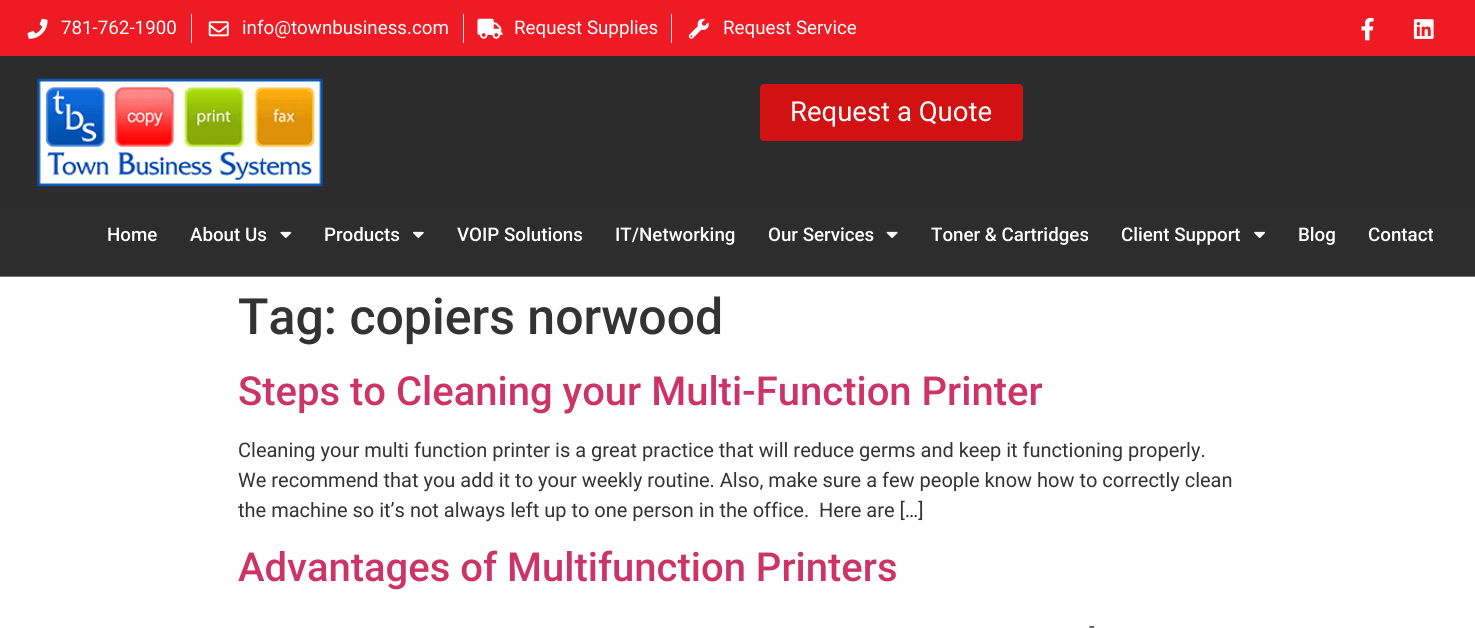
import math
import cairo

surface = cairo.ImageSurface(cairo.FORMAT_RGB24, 1475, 628)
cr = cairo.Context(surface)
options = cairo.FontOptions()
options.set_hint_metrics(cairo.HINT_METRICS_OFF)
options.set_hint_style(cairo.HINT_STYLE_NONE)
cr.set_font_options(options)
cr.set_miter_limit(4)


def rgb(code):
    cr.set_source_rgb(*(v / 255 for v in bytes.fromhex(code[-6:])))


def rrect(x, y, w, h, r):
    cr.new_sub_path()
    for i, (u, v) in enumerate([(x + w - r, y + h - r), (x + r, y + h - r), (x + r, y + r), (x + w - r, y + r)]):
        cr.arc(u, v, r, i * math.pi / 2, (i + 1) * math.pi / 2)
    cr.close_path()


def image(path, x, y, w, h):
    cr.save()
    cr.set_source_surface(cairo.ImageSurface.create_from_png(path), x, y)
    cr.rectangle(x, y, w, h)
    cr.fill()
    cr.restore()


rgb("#ffffff")
cr.paint()
rgb("#ee1b24")
cr.rectangle(0, 0, 1475, 56)
cr.fill()
image("img/1.png", 27, 18, 21, 21)
rgb("#dddddd")
cr.rectangle(191, 14, 1, 29)
cr.fill()
image("img/2.png", 208, 21, 21, 16)
cr.rectangle(463, 14, 1, 29)
cr.fill()
image("img/3.png", 477, 18, 26, 21)
cr.rectangle(671, 14, 1, 29)
cr.fill()
image("img/4.png", 688, 18, 21, 21)
image("img/5.png", 1361, 17, 13, 24)
image("img/6.png", 1413, 19, 21, 20)
rgb("#2d2c2c")
cr.rectangle(0, 56, 1475, 153)
cr.fill()
image("img/7.png", 37, 78, 286, 109)
rgb("#d21212")
rrect(760, 84, 263, 57, 4)
cr.fill()
rgb("#2d2d2d")
cr.rectangle(0, 209, 1475, 67)
cr.fill()
rgb("#757575")
cr.rectangle(0, 276, 1475, 1)
cr.fill()
image("img/8.png", 280, 231, 12, 7)
image("img/9.png", 412, 231, 12, 7)
image("img/10.png", 886, 231, 12, 7)
image("img/11.png", 1254, 231, 11, 7)
cr.select_font_face("Roboto")
cr.set_font_size(18.75)
rgb("#ffffff")
for x, y, s in [
    (61, 34, "781-762-1900"),
    (242, 34, "info@townbusiness.com"),
    (514, 34, "Request Supplies"),
    (723, 34, "Request Service"),
]:
    cr.move_to(x, y)
    cr.show_text(s)
cr.set_font_size(27.5)
cr.move_to(790, 121)
cr.show_text("Request a Quote")
cr.select_font_face("Roboto Medium")
cr.set_font_size(18.75)
for x, y, s in [
    (107, 241, "Home"),
    (190, 241, "About Us"),
    (324, 241, "Products"),
    (457, 241, "VOIP Solutions"),
    (615, 241, "IT/Networking"),
    (768, 241, "Our Services"),
    (931, 241, "Toner & Cartridges"),
    (1121, 241, "Client Support"),
    (1298, 241, "Blog"),
    (1368, 241, "Contact"),
]:
    cr.move_to(x, y)
    cr.show_text(s)
cr.set_font_size(50)
rgb("#333333")
cr.move_to(238, 334)
cr.show_text("Tag: copiers norwood")
cr.set_font_size(40)
rgb("#cc3366")
cr.move_to(238, 405)
cr.show_text("Steps to Cleaning your Multi-Function Printer")
cr.select_font_face("Roboto")
cr.set_font_size(20)
rgb("#333333")
for x, y, s in [
    (238, 457, "Cleaning your multi function printer is a great practice that will reduce germs and keep it functioning properly."),
    (238, 487, "We recommend that you add it to your weekly routine. Also, make sure a few people know how to correctly clean"),
    (238, 517, "the machine so it’s not always left up to one person in the office.  Here are […]"),
]:
    cr.move_to(x, y)
    cr.show_text(s)
cr.select_font_face("Roboto Medium")
cr.set_font_size(40)
rgb("#cc3366")
cr.move_to(238, 581)
cr.show_text("Advantages of Multifunction Printers")
cr.select_font_face("Roboto")
cr.set_font_size(20)
rgb("#333333")
cr.move_to(1089, 633)
cr.show_text("-")
surface.write_to_png("page.png")
